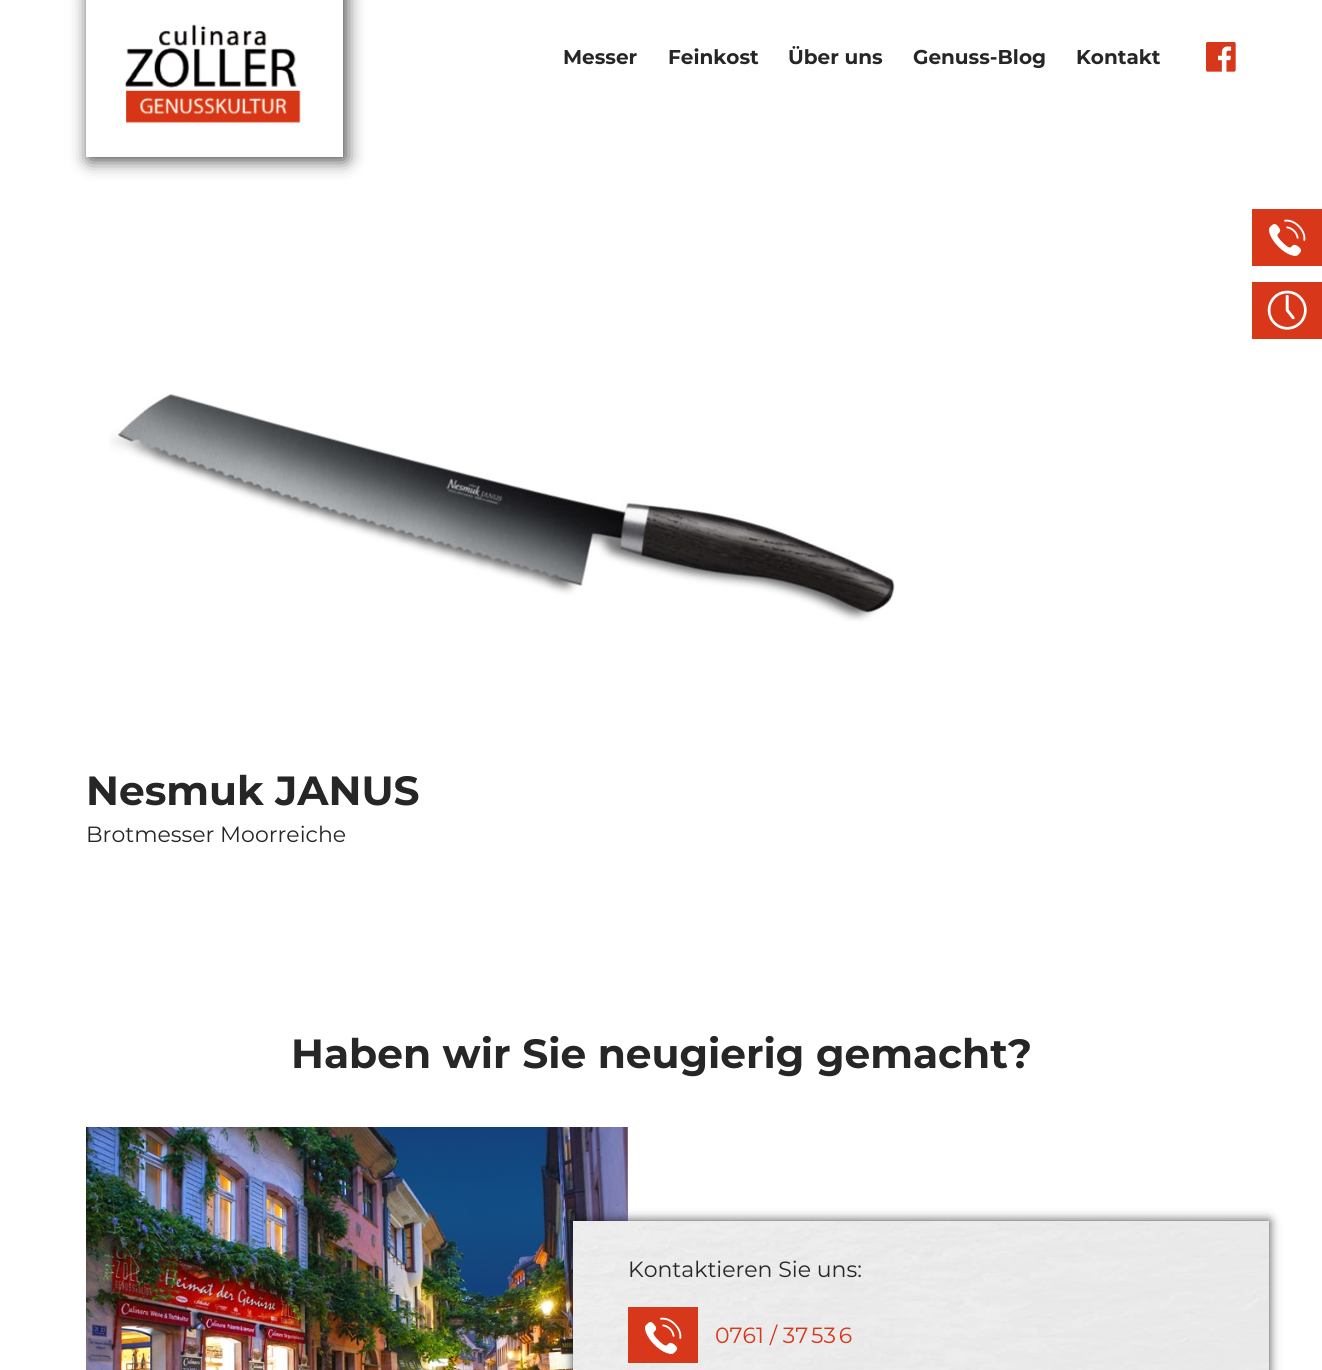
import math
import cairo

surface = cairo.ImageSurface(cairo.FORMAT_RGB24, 1322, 1370)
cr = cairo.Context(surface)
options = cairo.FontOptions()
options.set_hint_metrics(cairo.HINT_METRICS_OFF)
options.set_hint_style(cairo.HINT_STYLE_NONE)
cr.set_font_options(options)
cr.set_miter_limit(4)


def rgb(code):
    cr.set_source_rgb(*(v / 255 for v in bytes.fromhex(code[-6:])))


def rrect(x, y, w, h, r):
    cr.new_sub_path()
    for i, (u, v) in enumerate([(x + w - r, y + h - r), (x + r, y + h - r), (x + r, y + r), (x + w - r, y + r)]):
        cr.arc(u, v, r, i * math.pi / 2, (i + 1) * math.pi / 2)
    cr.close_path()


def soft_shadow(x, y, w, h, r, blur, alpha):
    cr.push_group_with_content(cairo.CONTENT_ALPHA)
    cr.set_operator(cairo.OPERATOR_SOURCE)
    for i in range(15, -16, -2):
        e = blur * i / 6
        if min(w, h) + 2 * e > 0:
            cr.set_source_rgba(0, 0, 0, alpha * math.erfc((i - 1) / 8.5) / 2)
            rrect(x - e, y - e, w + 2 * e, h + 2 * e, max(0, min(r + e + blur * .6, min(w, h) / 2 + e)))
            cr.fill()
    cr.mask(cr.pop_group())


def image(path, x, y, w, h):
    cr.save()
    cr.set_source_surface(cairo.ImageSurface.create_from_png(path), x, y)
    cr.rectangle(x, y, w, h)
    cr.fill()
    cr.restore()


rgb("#ffffff")
cr.paint()
cr.save()
cr.set_fill_rule(cairo.FILL_RULE_EVEN_ODD)
cr.new_path()
cr.move_to(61, 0)
cr.line_to(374, 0)
cr.line_to(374, 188)
cr.line_to(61, 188)
cr.close_path()
cr.move_to(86, -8)
cr.line_to(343, -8)
cr.line_to(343, 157)
cr.line_to(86, 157)
cr.close_path()
cr.clip()
rgb("#000000")
soft_shadow(89, -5, 257, 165, 0, 9, 0.75)
cr.restore()
image("img/1.png", 125, 24, 176, 100)
image("img/2.png", 1206, 42, 30, 30)
rgb("#d7371a")
cr.rectangle(1252, 209, 70, 10)
cr.fill()
image("img/3.png", 1252, 219, 70, 47)
cr.rectangle(1252, 282, 70, 8)
cr.fill()
image("img/4.png", 1252, 290, 70, 49)
image("img/5.png", 109, 394, 786, 227)
image("img/6.png", 86, 1127, 542, 243)
rgb("#000000")
soft_shadow(573, 1221, 696, 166, 0, 5.5, 0.75)
image("img/7.png", 573, 1221, 696, 149)
rgb("#d7371a")
cr.rectangle(628, 1307, 70, 56)
cr.fill()
image("img/8.png", 645, 1317, 37, 37)
cr.select_font_face("Montserrat", cairo.FONT_SLANT_NORMAL, cairo.FONT_WEIGHT_BOLD)
cr.set_font_size(20)
rgb("#262626")
for x, y, s in [
    (563, 64, "Messer"),
    (668, 64, "Feinkost"),
    (788, 64, "Über uns"),
    (913, 64, "Genuss-Blog"),
    (1076, 64, "Kontakt"),
]:
    cr.move_to(x, y)
    cr.show_text(s)
cr.set_font_size(40.75)
cr.move_to(86, 805)
cr.show_text("Nesmuk JANUS")
cr.select_font_face("Montserrat")
cr.set_font_size(22)
cr.move_to(86, 842)
cr.show_text("Brotmesser Moorreiche")
cr.select_font_face("Montserrat", cairo.FONT_SLANT_NORMAL, cairo.FONT_WEIGHT_BOLD)
cr.set_font_size(40.75)
cr.move_to(291, 1068)
cr.show_text("Haben wir Sie neugierig gemacht?")
cr.select_font_face("Montserrat")
cr.set_font_size(22)
cr.move_to(628, 1277)
cr.show_text("Kontaktieren Sie uns:")
rgb("#d7371a")
cr.move_to(715, 1343)
cr.show_text("0761 / 37 53 6")
surface.write_to_png("page.png")
